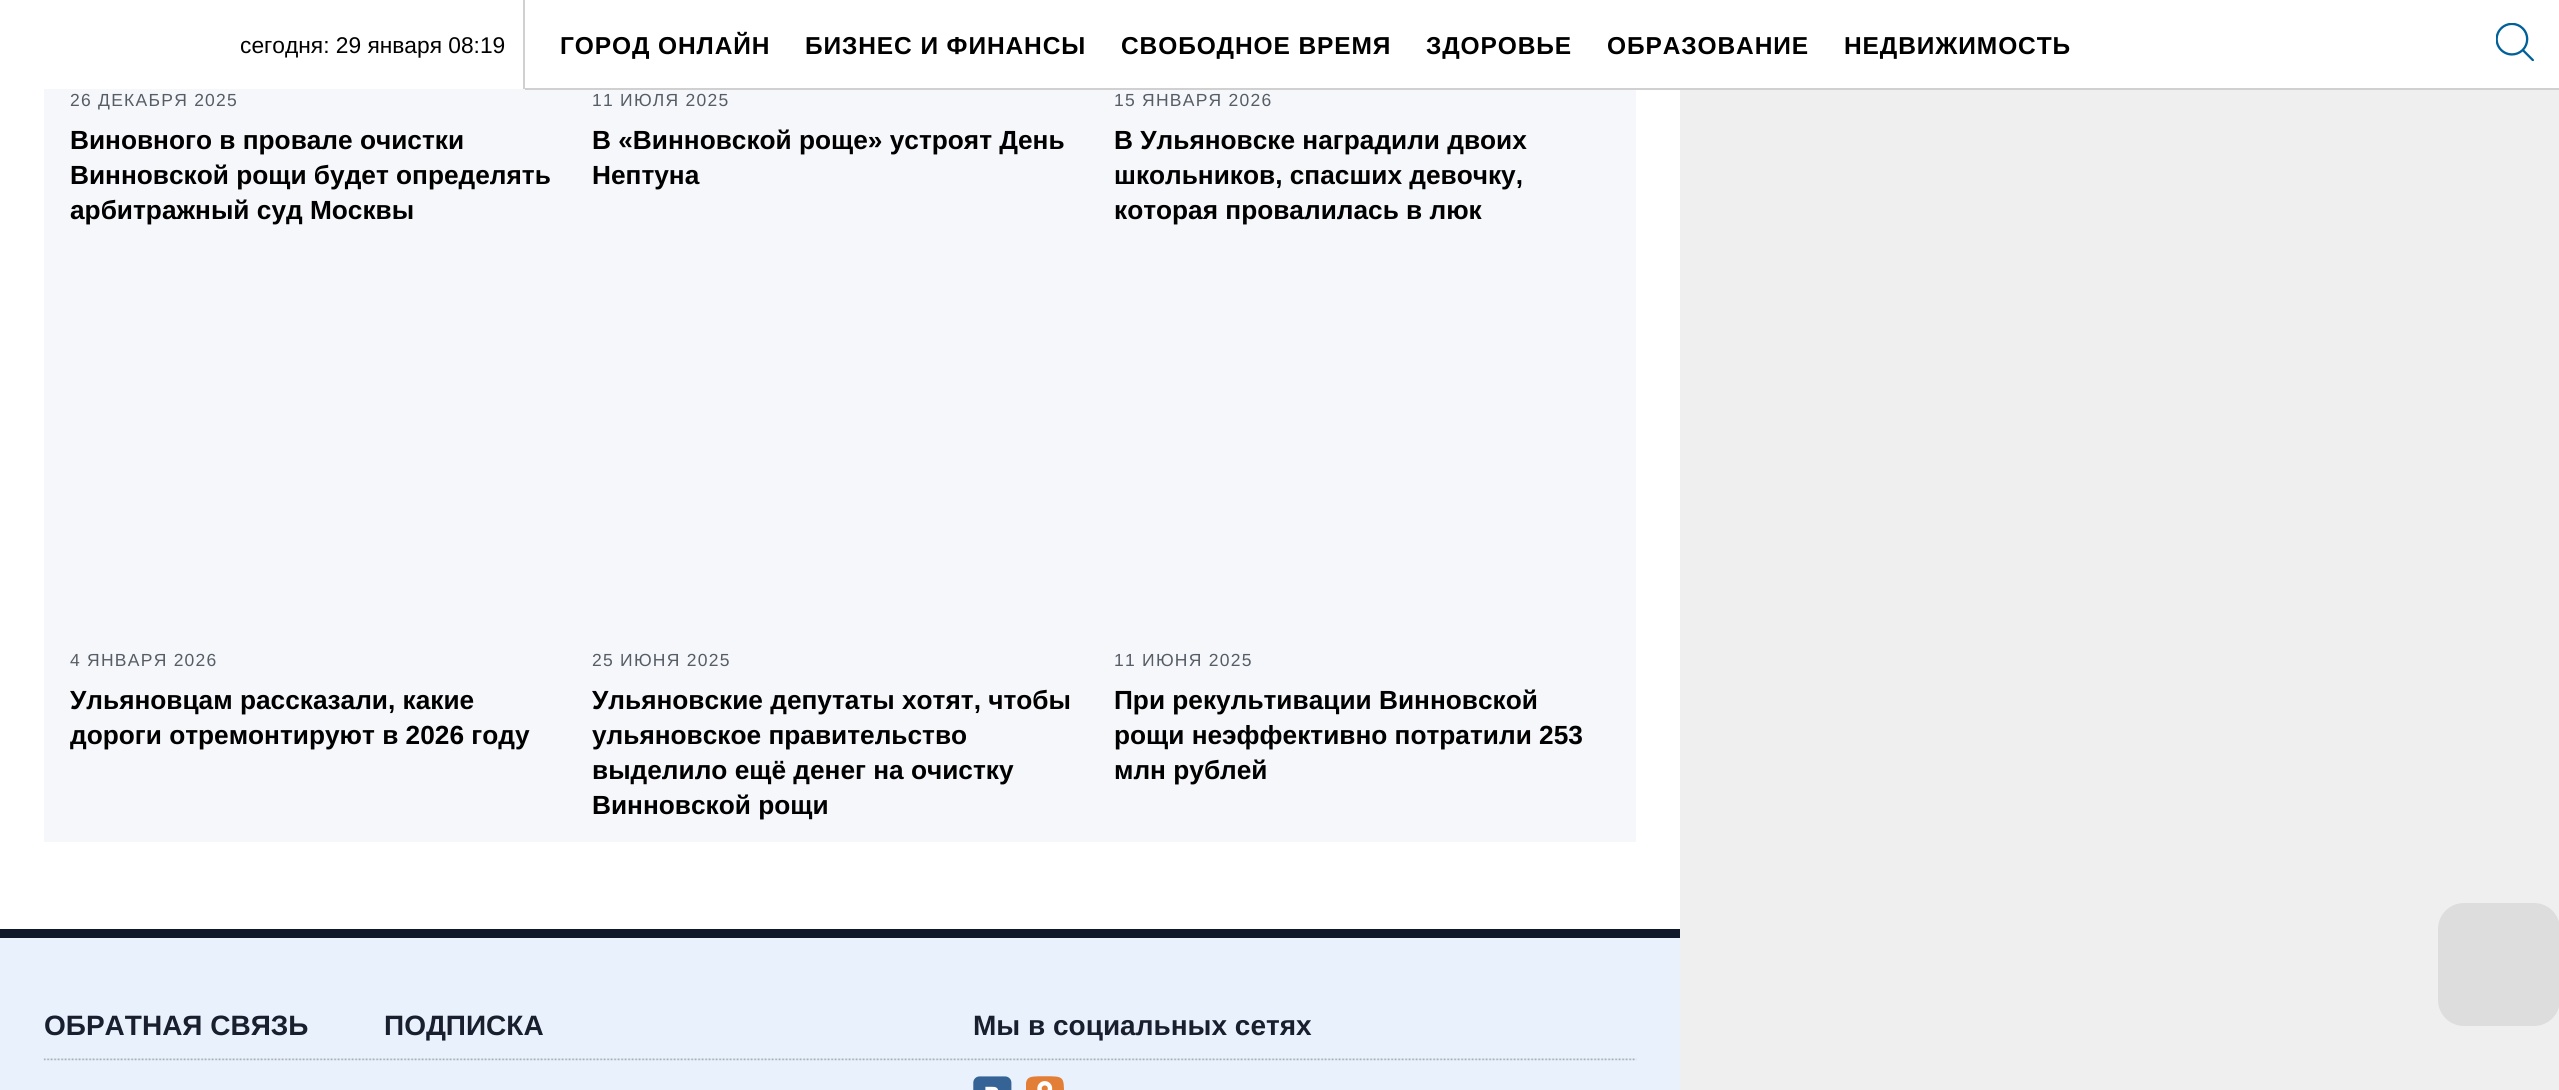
import math
import cairo

surface = cairo.ImageSurface(cairo.FORMAT_RGB24, 2559, 1090)
cr = cairo.Context(surface)
options = cairo.FontOptions()
options.set_hint_metrics(cairo.HINT_METRICS_OFF)
options.set_hint_style(cairo.HINT_STYLE_NONE)
cr.set_font_options(options)
cr.set_miter_limit(4)


def rgb(code):
    cr.set_source_rgb(*(v / 255 for v in bytes.fromhex(code[-6:])))


def tracked(x, y, s, letter, word):
    cr.move_to(x, y)
    for ch in s:
        cr.show_text(ch)
        cr.rel_move_to(letter + word * (ch == ' '), 0)


def rrect(x, y, w, h, r):
    cr.new_sub_path()
    for i, (u, v) in enumerate([(x + w - r, y + h - r), (x + r, y + h - r), (x + r, y + r), (x + w - r, y + r)]):
        cr.arc(u, v, r, i * math.pi / 2, (i + 1) * math.pi / 2)
    cr.close_path()


def image(path, x, y, w, h):
    cr.save()
    cr.set_source_surface(cairo.ImageSurface.create_from_png(path), x, y)
    cr.rectangle(x, y, w, h)
    cr.fill()
    cr.restore()


rgb("#efefef")
cr.paint()
for x, y, w, h, color in [
    (0, 0, 2559, 89, "#ffffff"),
    (523, 0, 2, 89, "#d1d0d0"),
    (0, 89, 1680, 840, "#ffffff"),
    (44, 89, 1592, 753, "#f5f7fa"),
    (525, 88, 2034, 2, "#d1d0d0"),
]:
    rgb(color)
    cr.rectangle(x, y, w, h)
    cr.fill()
image("img/1.png", 2496, 23, 38, 38)
rgb("#e9f2fc")
cr.rectangle(0, 938, 1680, 152)
cr.fill()
rgb("#0f192b")
cr.rectangle(0, 929, 1680, 9)
cr.fill()
image("img/2.png", 43, 1058, 1594, 3)
image("img/3.png", 973, 1076, 39, 14)
image("img/4.png", 1026, 1076, 38, 14)
rgb("#dddddd")
rrect(2438, 903, 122, 123, 26)
cr.fill()
cr.select_font_face("Liberation Sans")
cr.set_font_size(22.75)
rgb("#000000")
cr.move_to(240, 53)
cr.show_text("сегодня: 29 января 08:19")
cr.select_font_face("Liberation Sans", cairo.FONT_SLANT_NORMAL, cairo.FONT_WEIGHT_BOLD)
cr.set_font_size(24.5)
for x, y, s in [
    (560, 54, "ГОРОД ОНЛАЙН"),
    (805, 54, "БИЗНЕС И ФИНАНСЫ"),
    (1121, 54, "СВОБОДНОЕ ВРЕМЯ"),
    (1426, 54, "ЗДОРОВЬЕ"),
    (1607, 54, "ОБРАЗОВАНИЕ"),
    (1844, 54, "НЕДВИЖИМОСТЬ"),
]:
    tracked(x, y, s, 0.9, 0)
cr.select_font_face("Liberation Sans")
cr.set_font_size(17.5)
rgb("#565d66")
tracked(70, 106, "26 ДЕКАБРЯ 2025", 1.25, 0)
cr.select_font_face("Liberation Sans", cairo.FONT_SLANT_NORMAL, cairo.FONT_WEIGHT_BOLD)
cr.set_font_size(26.25)
rgb("#000000")
for x, y, s in [
    (70, 149, "Виновного в провале очистки"),
    (70, 184, "Винновской рощи будет определять"),
    (70, 219, "арбитражный суд Москвы"),
]:
    cr.move_to(x, y)
    cr.show_text(s)
cr.select_font_face("Liberation Sans")
cr.set_font_size(17.5)
rgb("#565d66")
tracked(592, 106, "11 ИЮЛЯ 2025", 1.25, 0)
cr.select_font_face("Liberation Sans", cairo.FONT_SLANT_NORMAL, cairo.FONT_WEIGHT_BOLD)
cr.set_font_size(26.25)
rgb("#000000")
cr.move_to(592, 149)
cr.show_text("В «Винновской роще» устроят День")
cr.move_to(592, 184)
cr.show_text("Нептуна")
cr.select_font_face("Liberation Sans")
cr.set_font_size(17.5)
rgb("#565d66")
tracked(1114, 106, "15 ЯНВАРЯ 2026", 1.25, 0)
cr.select_font_face("Liberation Sans", cairo.FONT_SLANT_NORMAL, cairo.FONT_WEIGHT_BOLD)
cr.set_font_size(26.25)
rgb("#000000")
for x, y, s in [
    (1114, 149, "В Ульяновске наградили двоих"),
    (1114, 184, "школьников, спасших девочку,"),
    (1114, 219, "которая провалилась в люк"),
]:
    cr.move_to(x, y)
    cr.show_text(s)
cr.select_font_face("Liberation Sans")
cr.set_font_size(17.5)
rgb("#565d66")
tracked(70, 666, "4 ЯНВАРЯ 2026", 1.25, 0)
cr.select_font_face("Liberation Sans", cairo.FONT_SLANT_NORMAL, cairo.FONT_WEIGHT_BOLD)
cr.set_font_size(26.25)
rgb("#000000")
cr.move_to(70, 709)
cr.show_text("Ульяновцам рассказали, какие")
cr.move_to(70, 744)
cr.show_text("дороги отремонтируют в 2026 году")
cr.select_font_face("Liberation Sans")
cr.set_font_size(17.5)
rgb("#565d66")
tracked(592, 666, "25 ИЮНЯ 2025", 1.25, 0)
cr.select_font_face("Liberation Sans", cairo.FONT_SLANT_NORMAL, cairo.FONT_WEIGHT_BOLD)
cr.set_font_size(26.25)
rgb("#000000")
for x, y, s in [
    (592, 709, "Ульяновские депутаты хотят, чтобы"),
    (592, 744, "ульяновское правительство"),
    (592, 779, "выделило ещё денег на очистку"),
    (592, 814, "Винновской рощи"),
]:
    cr.move_to(x, y)
    cr.show_text(s)
cr.select_font_face("Liberation Sans")
cr.set_font_size(17.5)
rgb("#565d66")
tracked(1114, 666, "11 ИЮНЯ 2025", 1.25, 0)
cr.select_font_face("Liberation Sans", cairo.FONT_SLANT_NORMAL, cairo.FONT_WEIGHT_BOLD)
cr.set_font_size(26.25)
rgb("#000000")
for x, y, s in [
    (1114, 709, "При рекультивации Винновской"),
    (1114, 744, "рощи неэффективно потратили 253"),
    (1114, 779, "млн рублей"),
]:
    cr.move_to(x, y)
    cr.show_text(s)
cr.set_font_size(28)
rgb("#191f2e")
for x, y, s in [
    (44, 1035, "ОБРАТНАЯ СВЯЗЬ"),
    (384, 1035, "ПОДПИСКА"),
    (973, 1035, "Мы в социальных сетях"),
]:
    cr.move_to(x, y)
    cr.show_text(s)
surface.write_to_png("page.png")
